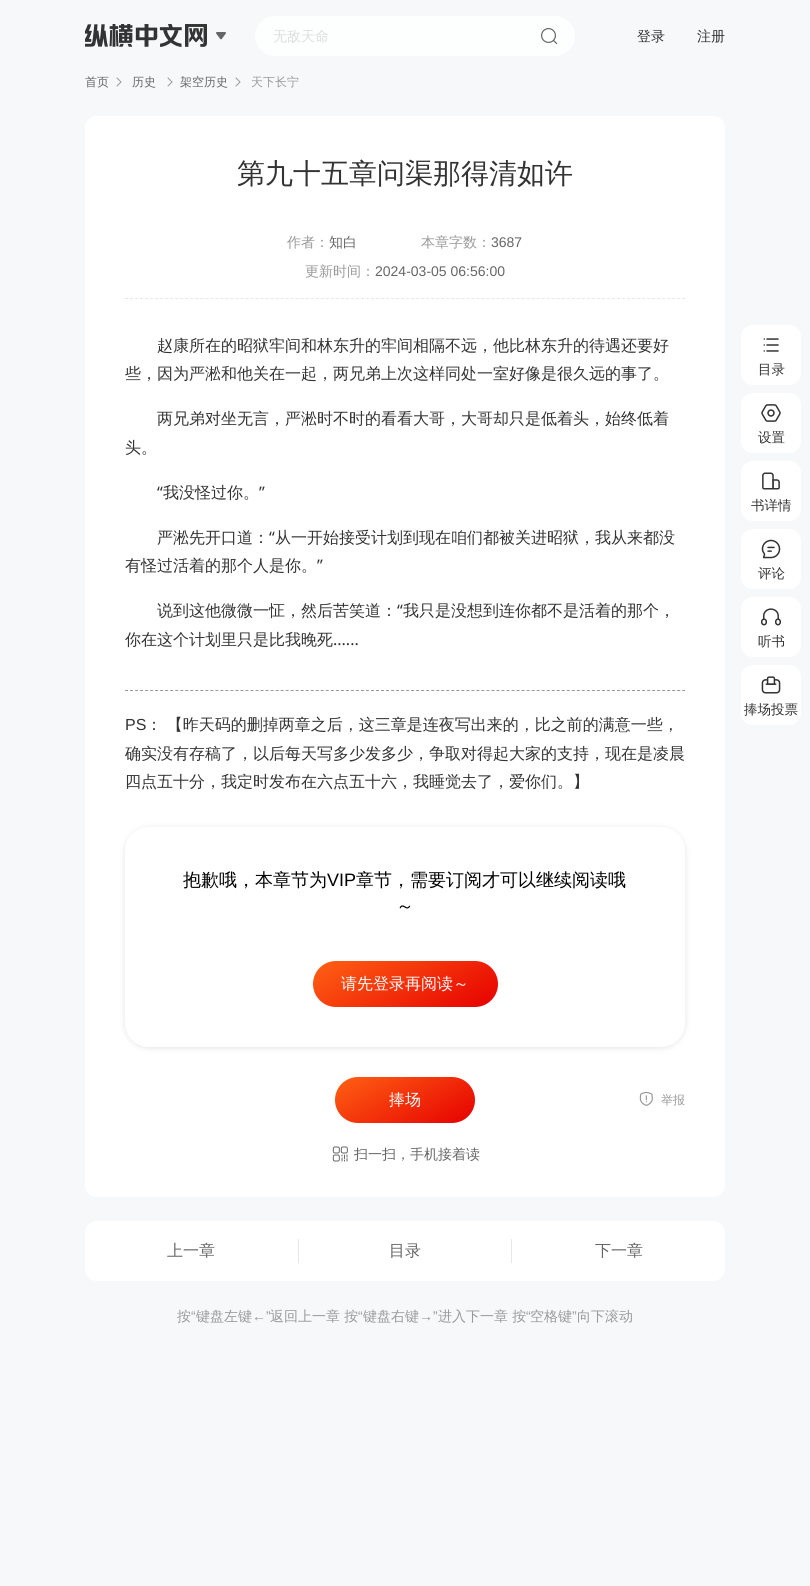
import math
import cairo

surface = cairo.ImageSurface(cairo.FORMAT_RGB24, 810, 1586)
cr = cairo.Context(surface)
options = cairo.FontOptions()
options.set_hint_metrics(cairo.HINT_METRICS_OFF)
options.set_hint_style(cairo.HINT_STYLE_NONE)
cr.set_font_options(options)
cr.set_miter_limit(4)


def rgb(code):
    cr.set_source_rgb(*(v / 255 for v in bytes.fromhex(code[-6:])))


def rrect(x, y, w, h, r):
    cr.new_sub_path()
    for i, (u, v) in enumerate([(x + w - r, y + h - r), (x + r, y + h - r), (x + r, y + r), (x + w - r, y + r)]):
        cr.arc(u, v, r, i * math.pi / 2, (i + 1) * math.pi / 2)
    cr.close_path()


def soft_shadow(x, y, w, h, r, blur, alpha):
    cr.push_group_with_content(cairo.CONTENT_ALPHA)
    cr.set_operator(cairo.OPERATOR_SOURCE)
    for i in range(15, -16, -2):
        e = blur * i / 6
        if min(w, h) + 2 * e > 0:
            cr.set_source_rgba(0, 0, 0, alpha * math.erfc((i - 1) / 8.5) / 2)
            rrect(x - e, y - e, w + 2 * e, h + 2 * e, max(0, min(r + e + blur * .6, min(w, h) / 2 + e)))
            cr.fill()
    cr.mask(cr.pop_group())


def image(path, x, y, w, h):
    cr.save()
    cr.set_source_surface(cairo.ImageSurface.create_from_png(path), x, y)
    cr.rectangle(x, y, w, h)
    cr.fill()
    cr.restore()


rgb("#f6f8fa")
cr.paint()
image("img/1.png", 85, 24, 122, 23)
image("img/2.png", 216, 32, 10, 8)
rgb("#fdfefe")
rrect(255, 16, 320, 40, 20)
cr.fill()
image("img/3.png", 541, 28, 17, 17)
image("img/4.png", 116, 77, 6, 10)
image("img/4.png", 167, 77, 6, 10)
image("img/4.png", 235, 77, 6, 10)
rgb("#ffffff")
rrect(85, 116, 640, 1081, 12)
cr.fill()
cr.new_path()
cr.move_to(125, 298.5)
cr.line_to(685, 298.5)
rgb("#e7e7e7")
cr.set_line_width(1)
cr.set_dash([3, 2.02])
cr.stroke()
cr.new_path()
cr.move_to(125, 690.5)
cr.line_to(685, 690.5)
rgb("#999999")
cr.stroke()
rgb("#c7c9cd")
soft_shadow(125, 828, 560, 220, 24, 3, 0.5)
rgb("#ffffff")
rrect(125, 827, 560, 220, 24)
cr.fill()
gradient = cairo.LinearGradient(439, 1041, 372, 927)
gradient.add_color_stop_rgba(0, 0.902, 0, 0, 1)
gradient.add_color_stop_rgba(1, 1, 0.38, 0.078, 1)
cr.set_source(gradient)
rrect(313, 961, 185, 46, 23)
cr.fill()
gradient = cairo.LinearGradient(431, 1147, 379, 1053)
gradient.add_color_stop_rgba(0, 0.902, 0, 0, 1)
gradient.add_color_stop_rgba(1, 1, 0.38, 0.078, 1)
cr.set_source(gradient)
rrect(335, 1077, 140, 46, 23)
cr.fill()
image("img/5.png", 639, 1091, 14, 15)
image("img/6.png", 332, 1146, 16, 16)
rgb("#ffffff")
rrect(85, 1221, 640, 60, 12)
cr.fill()
rgb("#e7e7e7")
cr.rectangle(298, 1239, 1, 24)
cr.fill()
cr.rectangle(511, 1239, 1, 24)
cr.fill()
rgb("#ffffff")
rrect(741, 325, 60, 60, 12)
cr.fill()
image("img/7.png", 763, 338, 16, 14)
rrect(741, 393, 60, 60, 12)
cr.fill()
image("img/8.png", 761, 404, 20, 18)
rrect(741, 461, 60, 60, 12)
cr.fill()
image("img/9.png", 762, 472, 18, 18)
rrect(741, 529, 60, 60, 12)
cr.fill()
image("img/10.png", 761, 539, 20, 20)
rrect(741, 597, 60, 60, 12)
cr.fill()
image("img/11.png", 761, 608, 20, 18)
rrect(741, 665, 60, 60, 12)
cr.fill()
image("img/12.png", 761, 676, 20, 18)
cr.select_font_face("WenQuanYi Zen Hei Medium")
cr.set_font_size(14)
rgb("#dcdddf")
cr.move_to(273, 41)
cr.show_text("无敌天命")
rgb("#333333")
cr.move_to(637, 41)
cr.show_text("登录")
cr.move_to(697, 41)
cr.show_text("注册")
cr.set_font_size(12)
rgb("#666666")
for x, y, s in [
    (85, 86, "首页"),
    (132, 86, "历史"),
    (180, 86, "架空历史"),
]:
    cr.move_to(x, y)
    cr.show_text(s)
rgb("#999999")
cr.move_to(251, 86)
cr.show_text("天下长宁")
cr.set_font_size(28)
rgb("#333333")
cr.move_to(237, 183)
cr.show_text("第九十五章问渠那得清如许")
cr.set_font_size(14)
rgb("#999999")
cr.move_to(287, 247)
cr.show_text("作者：")
rgb("#666666")
cr.move_to(329, 247)
cr.show_text("知白")
rgb("#999999")
cr.move_to(421, 247)
cr.show_text("本章字数：")
cr.select_font_face("Liberation Sans")
rgb("#666666")
cr.move_to(491, 247)
cr.show_text("3687")
cr.select_font_face("WenQuanYi Zen Hei Medium")
rgb("#999999")
cr.move_to(305, 276)
cr.show_text("更新时间：")
cr.select_font_face("Liberation Sans")
rgb("#666666")
cr.move_to(375, 276)
cr.show_text("2024-03-05 06:56:00")
cr.select_font_face("WenQuanYi Zen Hei Medium")
cr.set_font_size(16)
rgb("#333333")
for x, y, s in [
    (157, 351, "赵康所在的昭狱牢间和林东升的牢间相隔不远，他比林东升的待遇还要好"),
    (125, 379, "些，因为严淞和他关在一起，两兄弟上次这样同处一室好像是很久远的事了。"),
    (157, 424, "两兄弟对坐无言，严淞时不时的看看大哥，大哥却只是低着头，始终低着"),
    (125, 453, "头。"),
]:
    cr.move_to(x, y)
    cr.show_text(s)
cr.select_font_face("Noto Sans")
cr.move_to(157, 498)
cr.show_text("“")
cr.select_font_face("WenQuanYi Zen Hei Medium")
cr.move_to(163, 498)
cr.show_text("我没怪过你。")
cr.select_font_face("Noto Sans")
cr.move_to(259, 498)
cr.show_text("”")
cr.select_font_face("WenQuanYi Zen Hei Medium")
cr.move_to(157, 543)
cr.show_text("严淞先开口道：")
cr.select_font_face("Noto Sans")
cr.move_to(269, 543)
cr.show_text("“")
cr.select_font_face("WenQuanYi Zen Hei Medium")
cr.move_to(275, 543)
cr.show_text("从一开始接受计划到现在咱们都被关进昭狱，我从来都没")
cr.move_to(125, 571)
cr.show_text("有怪过活着的那个人是你。")
cr.select_font_face("Noto Sans")
cr.move_to(317, 571)
cr.show_text("”")
cr.select_font_face("WenQuanYi Zen Hei Medium")
cr.move_to(157, 616)
cr.show_text("说到这他微微一怔，然后苦笑道：")
cr.select_font_face("Noto Sans")
cr.move_to(397, 616)
cr.show_text("“")
cr.select_font_face("WenQuanYi Zen Hei Medium")
cr.move_to(403, 616)
cr.show_text("我只是没想到连你都不是活着的那个，")
cr.move_to(125, 645)
cr.show_text("你在这个计划里只是比我晚死")
cr.select_font_face("Noto Sans")
cr.move_to(333, 645)
cr.show_text("......")
cr.select_font_face("Liberation Sans")
cr.move_to(125, 730)
cr.show_text("PS")
cr.select_font_face("WenQuanYi Zen Hei Medium")
for x, y, s in [
    (146, 730, "： 【昨天码的删掉两章之后，这三章是连夜写出来的，比之前的满意一些，"),
    (125, 759, "确实没有存稿了，以后每天写多少发多少，争取对得起大家的支持，现在是凌晨"),
    (125, 787, "四点五十分，我定时发布在六点五十六，我睡觉去了，爱你们。】"),
]:
    cr.move_to(x, y)
    cr.show_text(s)
cr.set_font_size(18)
rgb("#000000")
cr.move_to(183, 886)
cr.show_text("抱歉哦，本章节为")
cr.select_font_face("Liberation Sans")
cr.move_to(327, 886)
cr.show_text("VIP")
cr.select_font_face("WenQuanYi Zen Hei Medium")
cr.move_to(356, 886)
cr.show_text("章节，需要订阅才可以继续阅读哦")
cr.move_to(396, 912)
cr.show_text("～")
cr.set_font_size(16)
rgb("#ffffff")
cr.move_to(341, 989)
cr.show_text("请先登录再阅读～")
cr.move_to(389, 1105)
cr.show_text("捧场")
cr.set_font_size(12)
rgb("#999999")
cr.move_to(661, 1104)
cr.show_text("举报")
cr.set_font_size(14)
rgb("#666666")
cr.move_to(354, 1159)
cr.show_text("扫一扫，手机接着读")
cr.set_font_size(16)
for x, y, s in [
    (167, 1256, "上一章"),
    (389, 1256, "目录"),
    (595, 1256, "下一章"),
]:
    cr.move_to(x, y)
    cr.show_text(s)
cr.set_font_size(14)
rgb("#999999")
cr.move_to(177, 1321)
cr.show_text("按")
cr.select_font_face("Liberation Sans")
cr.move_to(191, 1321)
cr.show_text("“")
cr.select_font_face("WenQuanYi Zen Hei Medium")
cr.move_to(196, 1321)
cr.show_text("键盘左键")
cr.select_font_face("Liberation Sans")
cr.move_to(252, 1321)
cr.show_text("←”")
cr.select_font_face("WenQuanYi Zen Hei Medium")
cr.move_to(270, 1321)
cr.show_text("返回上一章 按")
cr.select_font_face("Liberation Sans")
cr.move_to(358, 1321)
cr.show_text("“")
cr.select_font_face("WenQuanYi Zen Hei Medium")
cr.move_to(363, 1321)
cr.show_text("键盘右键")
cr.select_font_face("Liberation Sans")
cr.move_to(419, 1321)
cr.show_text("→”")
cr.select_font_face("WenQuanYi Zen Hei Medium")
cr.move_to(438, 1321)
cr.show_text("进入下一章 按")
cr.select_font_face("Liberation Sans")
cr.move_to(526, 1321)
cr.show_text("“")
cr.select_font_face("WenQuanYi Zen Hei Medium")
cr.move_to(530, 1321)
cr.show_text("空格键")
cr.select_font_face("Liberation Sans")
cr.move_to(572, 1321)
cr.show_text("”")
cr.select_font_face("WenQuanYi Zen Hei Medium")
cr.move_to(577, 1321)
cr.show_text("向下滚动")
cr.set_font_size(13.5)
rgb("#333333")
for x, y, s in [
    (758, 374, "目录"),
    (758, 442, "设置"),
    (751, 510, "书详情"),
    (758, 578, "评论"),
    (758, 646, "听书"),
    (744, 714, "捧场投票"),
]:
    cr.move_to(x, y)
    cr.show_text(s)
surface.write_to_png("page.png")
